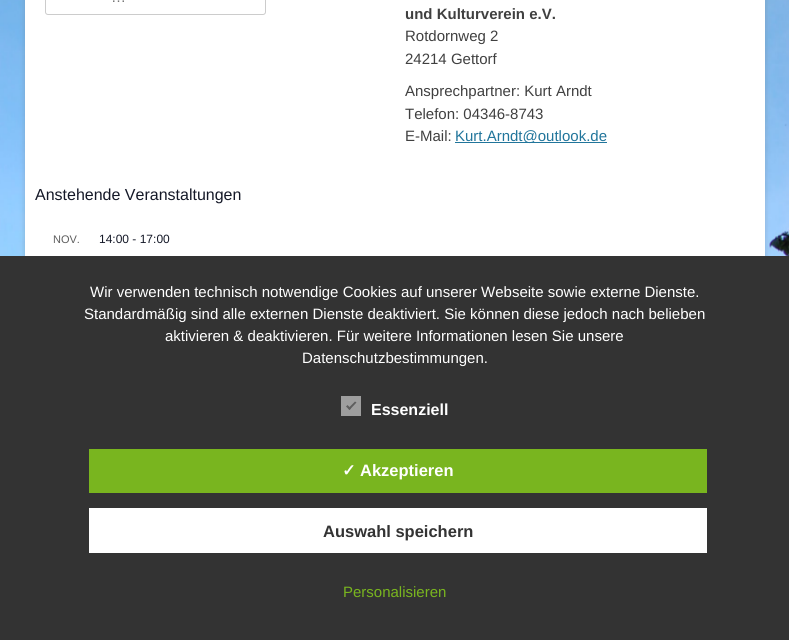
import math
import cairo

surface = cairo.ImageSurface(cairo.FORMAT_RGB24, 789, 640)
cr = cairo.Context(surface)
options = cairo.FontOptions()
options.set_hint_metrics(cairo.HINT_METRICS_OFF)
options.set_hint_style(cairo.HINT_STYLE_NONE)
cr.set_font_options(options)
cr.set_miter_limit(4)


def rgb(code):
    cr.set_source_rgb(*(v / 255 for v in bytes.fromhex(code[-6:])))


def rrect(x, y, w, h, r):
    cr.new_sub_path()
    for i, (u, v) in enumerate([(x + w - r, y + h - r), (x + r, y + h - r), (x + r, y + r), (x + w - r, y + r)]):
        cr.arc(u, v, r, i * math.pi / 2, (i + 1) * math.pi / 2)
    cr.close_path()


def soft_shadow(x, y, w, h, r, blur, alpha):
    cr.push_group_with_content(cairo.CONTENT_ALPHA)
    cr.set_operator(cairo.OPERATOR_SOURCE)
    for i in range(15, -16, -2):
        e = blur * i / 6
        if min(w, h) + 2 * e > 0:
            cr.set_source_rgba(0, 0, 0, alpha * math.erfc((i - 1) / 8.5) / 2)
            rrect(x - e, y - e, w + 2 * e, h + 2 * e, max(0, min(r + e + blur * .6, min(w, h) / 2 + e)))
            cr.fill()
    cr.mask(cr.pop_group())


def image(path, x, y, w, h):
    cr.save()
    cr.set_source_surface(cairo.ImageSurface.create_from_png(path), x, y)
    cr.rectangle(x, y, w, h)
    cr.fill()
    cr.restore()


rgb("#ffffff")
cr.paint()
image("img/1.png", 0, 0, 789, 256)
rgb("#646464")
soft_shadow(25, -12, 740, 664, 3, 3, 0.3)
rgb("#ffffff")
cr.rectangle(25, 0, 740, 256)
cr.fill()
rrect(45.5, -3.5, 220, 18, 2.5)
rgb("#cccccc")
cr.set_line_width(1)
cr.stroke()
for x, y, w, h, color in [
    (455, 142, 152, 1, "#21759b"),
    (0, 256, 789, 384, "#333333"),
    (341, 396, 20, 20, "#9e9e9e"),
]:
    rgb(color)
    cr.rectangle(x, y, w, h)
    cr.fill()
rgb("#5e5e5e")
cr.new_path()
cr.move_to(355, 401.5)
cr.line_to(356.5, 402.5)
cr.line_to(349.5, 410)
cr.line_to(348, 408.5)
cr.close_path()
cr.fill()
cr.new_path()
cr.move_to(347.5, 405)
cr.line_to(351, 408.5)
cr.line_to(349.5, 410)
cr.line_to(346, 406.5)
cr.close_path()
cr.fill()
rgb("#79b51f")
cr.rectangle(89, 449, 618, 44)
cr.fill()
rgb("#ffffff")
cr.rectangle(89, 508, 618, 45)
cr.fill()
cr.select_font_face("Liberation Sans")
cr.set_font_size(15)
rgb("#757575")
cr.move_to(111, 2)
cr.show_text("…")
cr.select_font_face("Liberation Sans", cairo.FONT_SLANT_NORMAL, cairo.FONT_WEIGHT_BOLD)
rgb("#404040")
cr.move_to(405, 19)
cr.show_text("und Kulturverein e.V.")
cr.select_font_face("Liberation Sans")
for x, y, s in [
    (405, 41, "Rotdornweg 2"),
    (405, 64, "24214 Gettorf"),
    (405, 96, "Ansprechpartner: Kurt Arndt"),
    (405, 119, "Telefon: 04346-8743"),
    (405, 141, "E-Mail:"),
]:
    cr.move_to(x, y)
    cr.show_text(s)
rgb("#21759b")
cr.move_to(455, 141)
cr.show_text("Kurt.Arndt@outlook.de")
cr.set_font_size(16)
rgb("#141827")
cr.move_to(35, 200)
cr.show_text("Anstehende Veranstaltungen")
cr.set_font_size(11)
rgb("#5d5d5d")
cr.move_to(53, 243)
cr.show_text("NOV.")
cr.set_font_size(12)
rgb("#141827")
cr.move_to(99, 243)
cr.show_text("14:00 - 17:00")
cr.set_font_size(15)
rgb("#ffffff")
for x, y, s in [
    (90, 297, "Wir verwenden technisch notwendige Cookies auf unserer Webseite sowie externe Dienste."),
    (84, 319, "Standardmäßig sind alle externen Dienste deaktiviert. Sie können diese jedoch nach belieben"),
    (165, 341, "aktivieren & deaktivieren. Für weitere Informationen lesen Sie unsere"),
    (302, 363, "Datenschutzbestimmungen."),
]:
    cr.move_to(x, y)
    cr.show_text(s)
cr.select_font_face("Liberation Sans", cairo.FONT_SLANT_NORMAL, cairo.FONT_WEIGHT_BOLD)
cr.set_font_size(16)
cr.move_to(371, 415)
cr.show_text("Essenziell")
cr.select_font_face("DejaVu Sans", cairo.FONT_SLANT_NORMAL, cairo.FONT_WEIGHT_BOLD)
cr.set_font_size(16.5)
cr.move_to(342, 476)
cr.show_text("✓")
cr.select_font_face("Liberation Sans", cairo.FONT_SLANT_NORMAL, cairo.FONT_WEIGHT_BOLD)
cr.move_to(360, 476)
cr.show_text("Akzeptieren")
rgb("#333333")
cr.move_to(323, 537)
cr.show_text("Auswahl speichern")
cr.select_font_face("Liberation Sans")
cr.set_font_size(15)
rgb("#79b51f")
cr.move_to(343, 597)
cr.show_text("Personalisieren")
surface.write_to_png("page.png")
